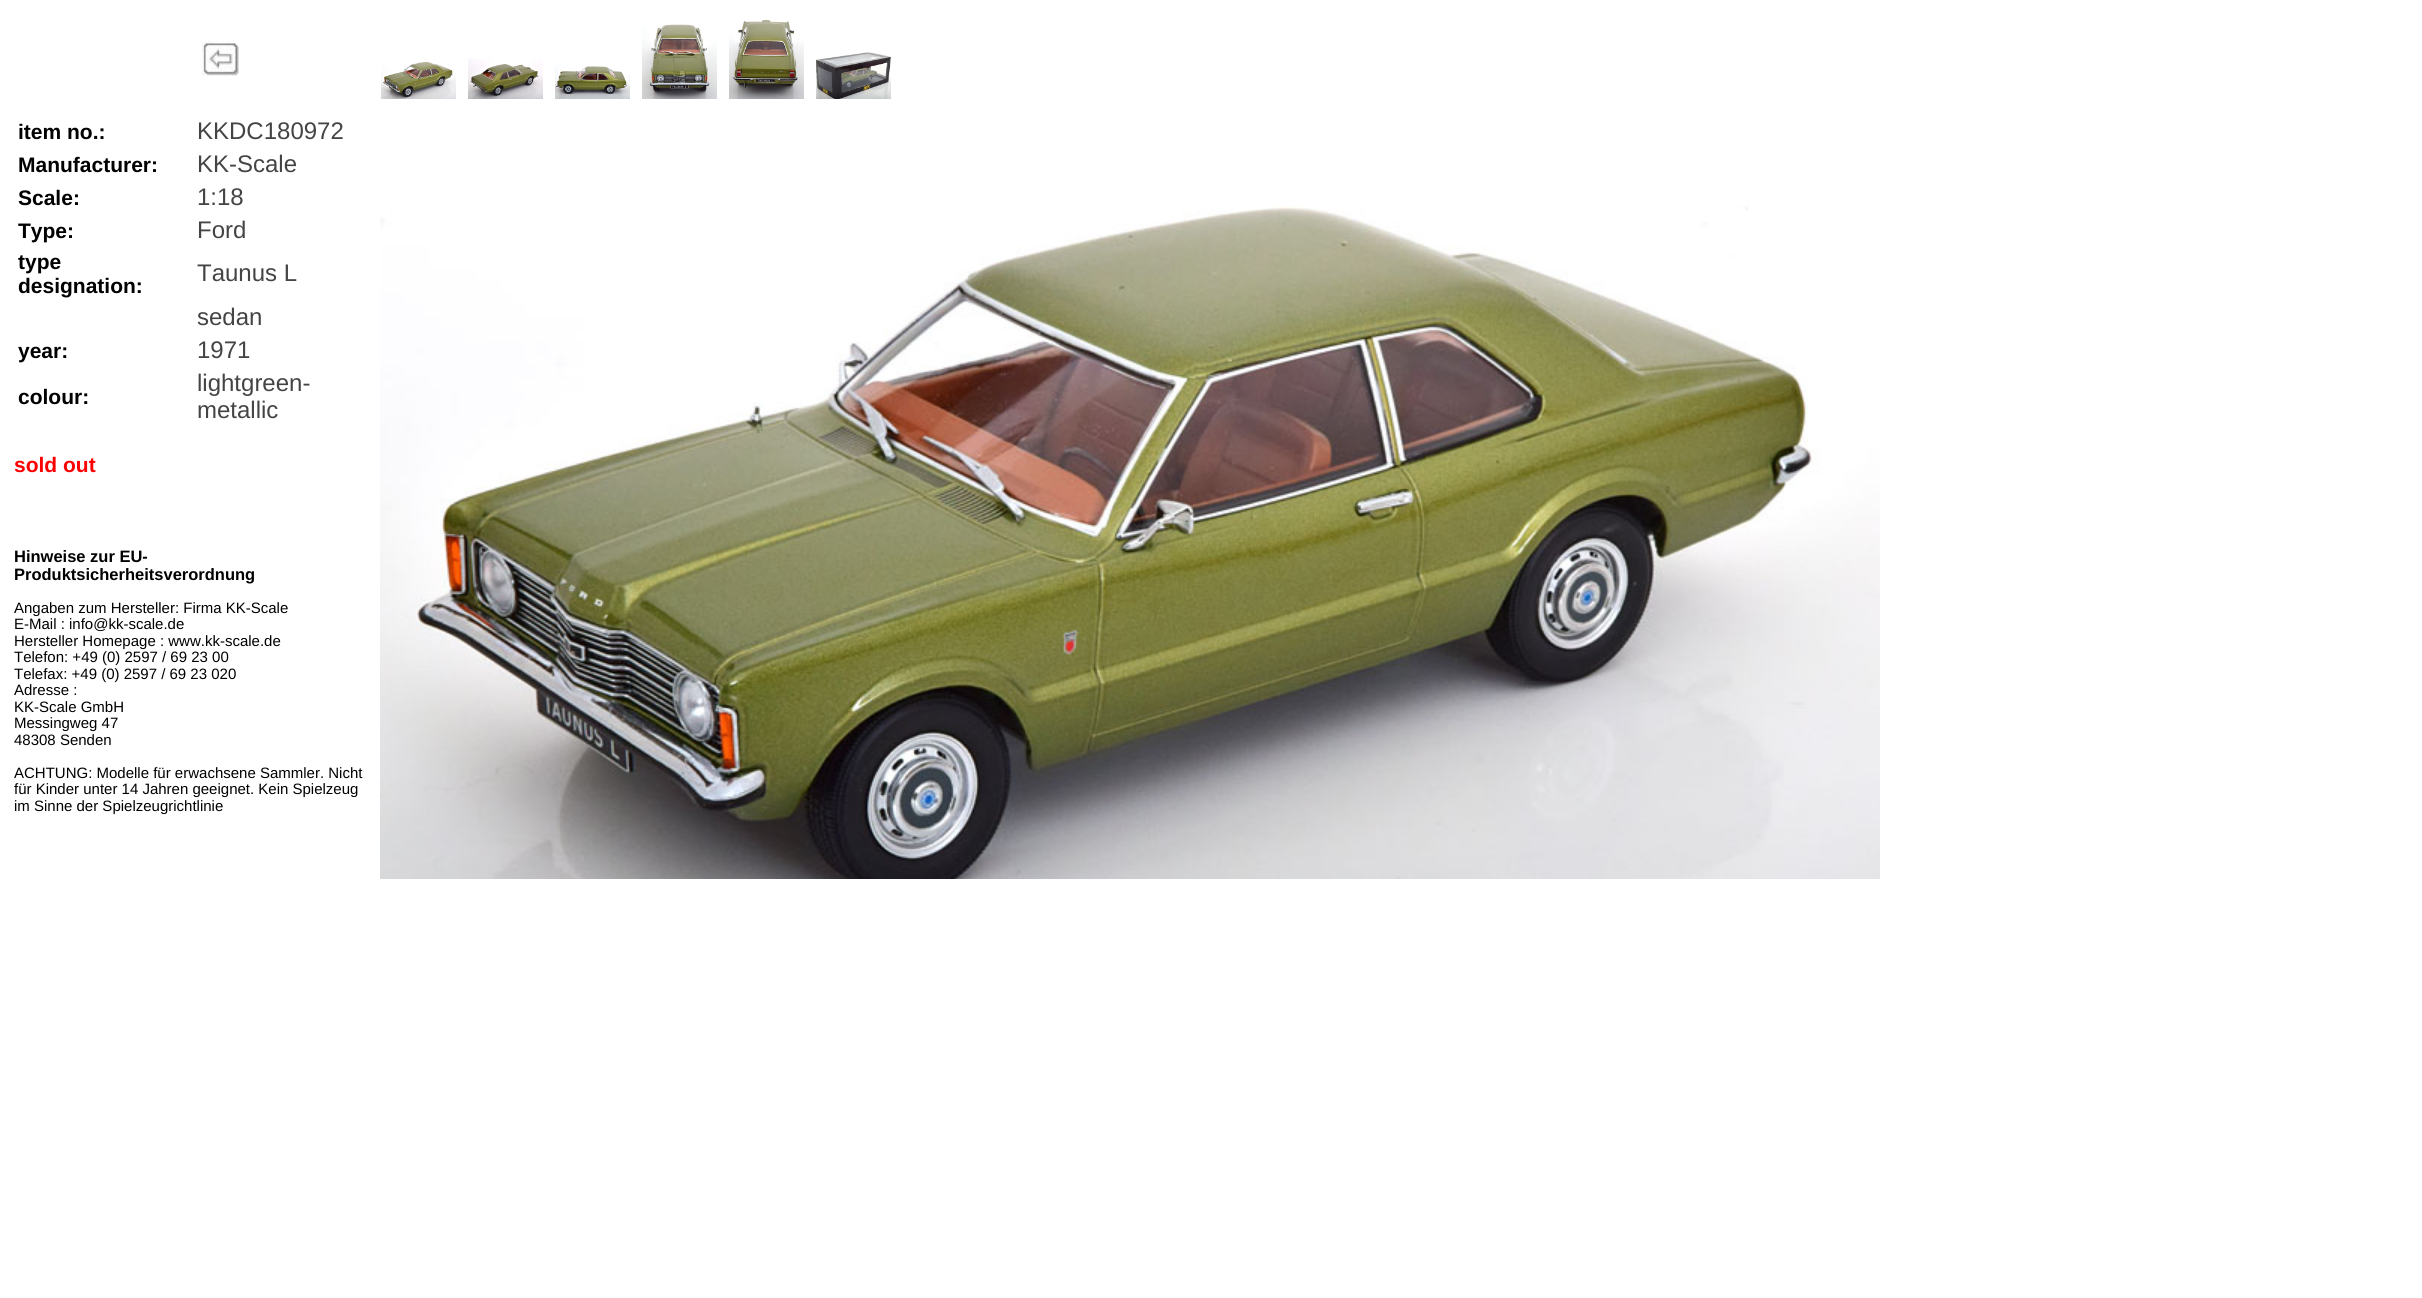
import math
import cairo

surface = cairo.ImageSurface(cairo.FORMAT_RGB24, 2422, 1298)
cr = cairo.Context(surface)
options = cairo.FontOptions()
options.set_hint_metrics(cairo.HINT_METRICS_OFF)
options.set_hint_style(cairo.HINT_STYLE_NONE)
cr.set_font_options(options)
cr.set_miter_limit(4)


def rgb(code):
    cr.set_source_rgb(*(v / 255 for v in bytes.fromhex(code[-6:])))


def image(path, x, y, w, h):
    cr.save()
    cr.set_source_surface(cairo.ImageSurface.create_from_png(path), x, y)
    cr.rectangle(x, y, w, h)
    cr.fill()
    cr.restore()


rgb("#ffffff")
cr.paint()
image("img/1.png", 201, 40, 38, 36)
image("img/2.png", 381, 61, 75, 38)
image("img/3.png", 468, 58, 75, 41)
image("img/4.png", 555, 64, 75, 35)
image("img/5.png", 642, 24, 75, 75)
image("img/6.png", 729, 19, 75, 80)
image("img/7.png", 816, 52, 75, 47)
image("img/8.png", 380, 206, 1500, 673)
cr.select_font_face("Liberation Sans", cairo.FONT_SLANT_NORMAL, cairo.FONT_WEIGHT_BOLD)
cr.set_font_size(21)
rgb("#000000")
cr.move_to(18, 139)
cr.show_text("item no.:")
cr.select_font_face("Liberation Sans")
cr.set_font_size(24)
rgb("#444444")
cr.move_to(197, 139)
cr.show_text("KKDC180972")
cr.select_font_face("Liberation Sans", cairo.FONT_SLANT_NORMAL, cairo.FONT_WEIGHT_BOLD)
cr.set_font_size(21)
rgb("#000000")
cr.move_to(18, 172)
cr.show_text("Manufacturer:")
cr.select_font_face("Liberation Sans")
cr.set_font_size(24)
rgb("#444444")
cr.move_to(197, 172)
cr.show_text("KK-Scale")
cr.select_font_face("Liberation Sans", cairo.FONT_SLANT_NORMAL, cairo.FONT_WEIGHT_BOLD)
cr.set_font_size(21)
rgb("#000000")
cr.move_to(18, 205)
cr.show_text("Scale:")
cr.select_font_face("Liberation Sans")
cr.set_font_size(24)
rgb("#444444")
cr.move_to(197, 205)
cr.show_text("1:18")
cr.select_font_face("Liberation Sans", cairo.FONT_SLANT_NORMAL, cairo.FONT_WEIGHT_BOLD)
cr.set_font_size(21)
rgb("#000000")
cr.move_to(18, 238)
cr.show_text("Type:")
cr.select_font_face("Liberation Sans")
cr.set_font_size(24)
rgb("#444444")
cr.move_to(197, 238)
cr.show_text("Ford")
cr.select_font_face("Liberation Sans", cairo.FONT_SLANT_NORMAL, cairo.FONT_WEIGHT_BOLD)
cr.set_font_size(21)
rgb("#000000")
cr.move_to(18, 269)
cr.show_text("type")
cr.move_to(18, 293)
cr.show_text("designation:")
cr.select_font_face("Liberation Sans")
cr.set_font_size(24)
rgb("#444444")
cr.move_to(197, 281)
cr.show_text("Taunus L")
cr.move_to(197, 325)
cr.show_text("sedan")
cr.select_font_face("Liberation Sans", cairo.FONT_SLANT_NORMAL, cairo.FONT_WEIGHT_BOLD)
cr.set_font_size(21)
rgb("#000000")
cr.move_to(18, 358)
cr.show_text("year:")
cr.select_font_face("Liberation Sans")
cr.set_font_size(24)
rgb("#444444")
cr.move_to(197, 358)
cr.show_text("1971")
cr.select_font_face("Liberation Sans", cairo.FONT_SLANT_NORMAL, cairo.FONT_WEIGHT_BOLD)
cr.set_font_size(21)
rgb("#000000")
cr.move_to(18, 404)
cr.show_text("colour:")
cr.select_font_face("Liberation Sans")
cr.set_font_size(24)
rgb("#444444")
cr.move_to(197, 391)
cr.show_text("lightgreen-")
cr.move_to(197, 418)
cr.show_text("metallic")
cr.select_font_face("Liberation Sans", cairo.FONT_SLANT_NORMAL, cairo.FONT_WEIGHT_BOLD)
cr.set_font_size(21)
rgb("#ff0000")
cr.move_to(14, 472)
cr.show_text("sold out")
cr.set_font_size(16.5)
rgb("#000000")
cr.move_to(14, 562)
cr.show_text("Hinweise zur EU-")
cr.move_to(14, 580)
cr.show_text("Produktsicherheitsverordnung")
cr.select_font_face("Liberation Sans")
cr.set_font_size(15)
for x, y, s in [
    (14, 613, "Angaben zum Hersteller: Firma KK-Scale"),
    (14, 629, "E-Mail : info@kk-scale.de"),
    (14, 646, "Hersteller Homepage : www.kk-scale.de"),
    (14, 662, "Telefon: +49 (0) 2597 / 69 23 00"),
    (14, 679, "Telefax: +49 (0) 2597 / 69 23 020"),
    (14, 695, "Adresse :"),
    (14, 712, "KK-Scale GmbH"),
    (14, 728, "Messingweg 47"),
    (14, 745, "48308 Senden"),
    (14, 778, "ACHTUNG: Modelle für erwachsene Sammler. Nicht"),
    (14, 794, "für Kinder unter 14 Jahren geeignet. Kein Spielzeug"),
    (14, 811, "im Sinne der Spielzeugrichtlinie"),
]:
    cr.move_to(x, y)
    cr.show_text(s)
surface.write_to_png("page.png")
